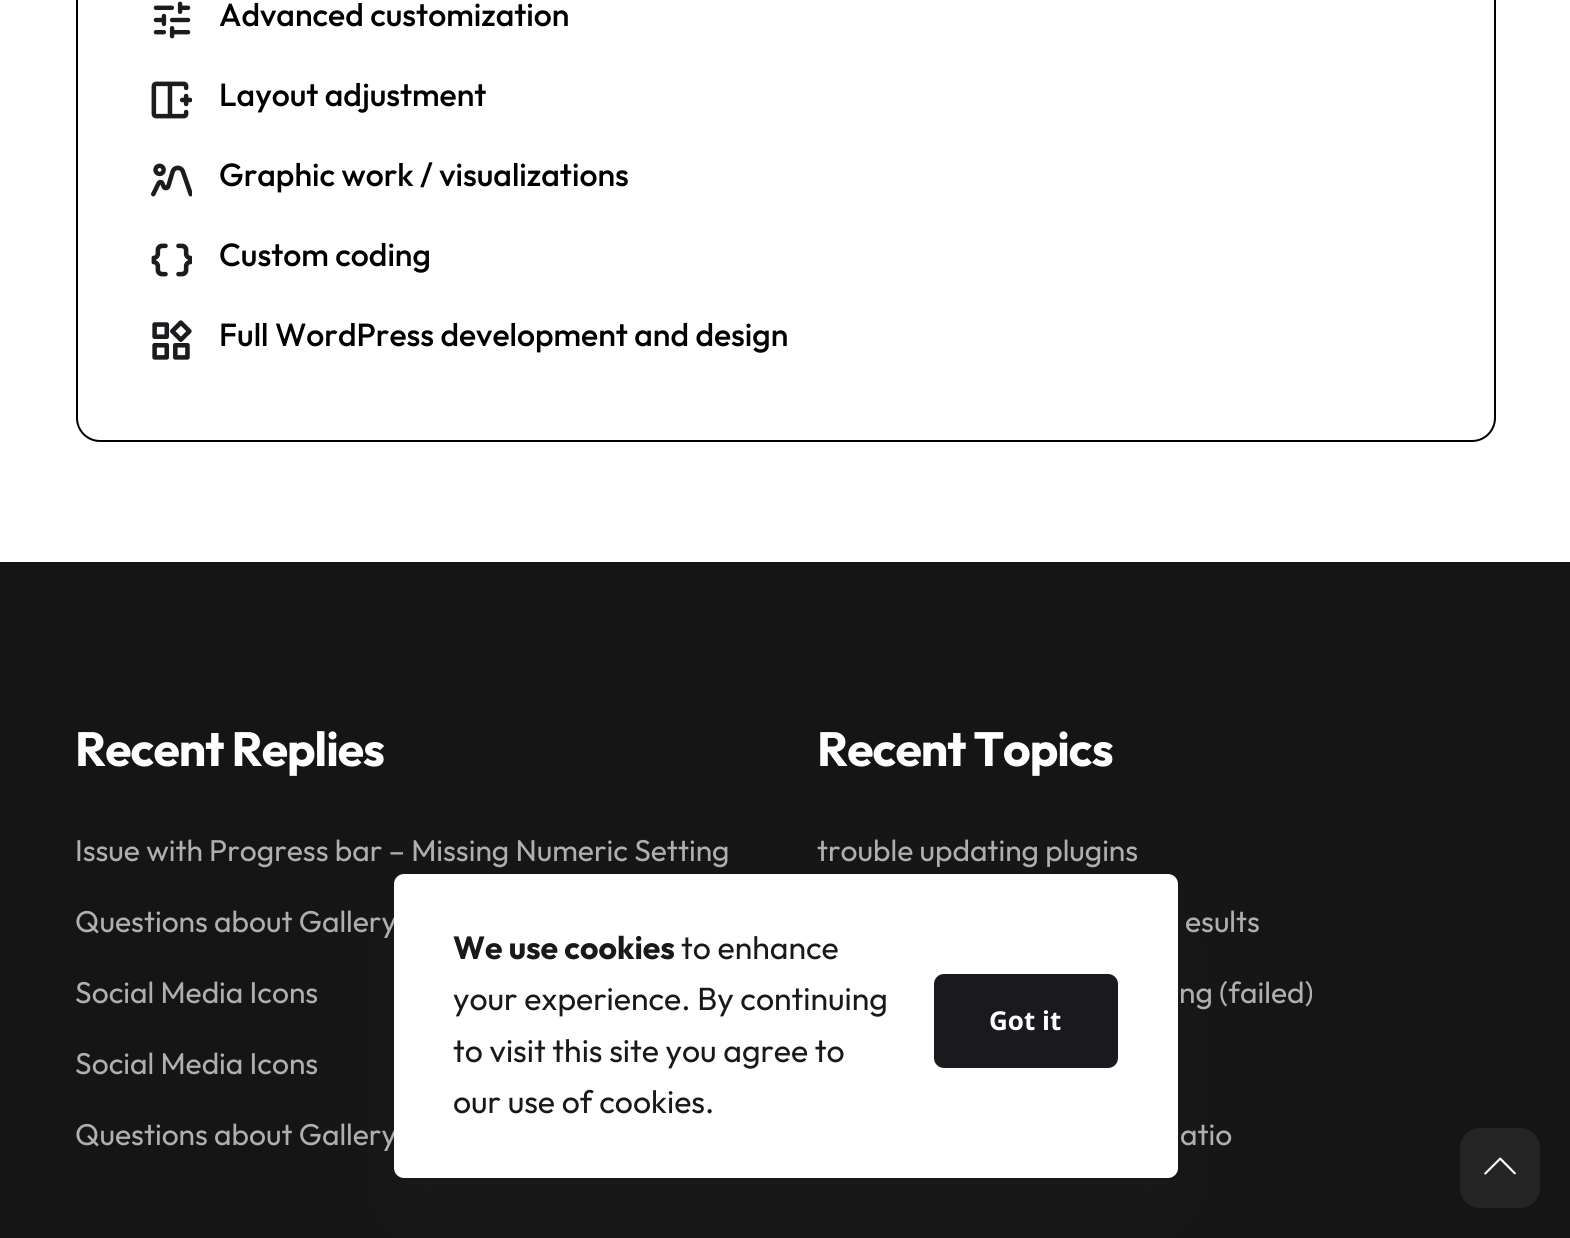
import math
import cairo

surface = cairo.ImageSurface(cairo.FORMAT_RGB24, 1570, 1238)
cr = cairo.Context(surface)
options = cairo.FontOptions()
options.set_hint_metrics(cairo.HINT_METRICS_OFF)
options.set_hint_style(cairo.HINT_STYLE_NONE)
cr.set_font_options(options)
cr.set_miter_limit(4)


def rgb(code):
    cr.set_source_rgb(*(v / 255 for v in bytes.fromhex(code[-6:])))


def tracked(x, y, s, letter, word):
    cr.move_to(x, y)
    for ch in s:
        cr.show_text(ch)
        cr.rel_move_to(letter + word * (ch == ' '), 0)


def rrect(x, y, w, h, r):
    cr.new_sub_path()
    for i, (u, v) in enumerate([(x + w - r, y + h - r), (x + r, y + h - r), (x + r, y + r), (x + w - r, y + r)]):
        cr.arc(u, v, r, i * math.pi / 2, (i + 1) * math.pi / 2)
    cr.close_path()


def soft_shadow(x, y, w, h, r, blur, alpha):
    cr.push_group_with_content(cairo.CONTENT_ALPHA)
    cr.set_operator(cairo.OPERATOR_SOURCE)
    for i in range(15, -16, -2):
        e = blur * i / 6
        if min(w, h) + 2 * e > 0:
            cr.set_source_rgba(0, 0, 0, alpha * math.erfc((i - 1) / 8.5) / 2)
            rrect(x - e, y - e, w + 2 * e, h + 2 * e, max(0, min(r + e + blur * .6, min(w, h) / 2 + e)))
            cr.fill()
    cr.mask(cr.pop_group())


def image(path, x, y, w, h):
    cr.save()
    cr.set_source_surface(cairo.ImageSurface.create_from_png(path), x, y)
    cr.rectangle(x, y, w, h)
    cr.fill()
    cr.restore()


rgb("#ffffff")
cr.paint()
rrect(77, -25, 1418, 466, 23)
rgb("#000000")
cr.stroke()
image("img/1.png", 153, 1, 38, 38)
image("img/2.png", 151, 81, 41, 38)
image("img/3.png", 151, 163, 41, 34)
image("img/4.png", 151, 243, 41, 34)
image("img/5.png", 152, 320, 40, 40)
rgb("#151515")
cr.rectangle(0, 562, 1570, 676)
cr.fill()
rgb("#313131")
soft_shadow(394, 918, 784, 304, 10, 54, 0.17)
rgb("#252525")
rrect(1460, 1128, 80, 80, 20)
cr.fill()
image("img/6.png", 1484, 1157, 32, 18)
cr.select_font_face("Outfit Medium")
cr.set_font_size(32)
rgb("#000000")
for x, y, s in [
    (219, 26, "Advanced customization"),
    (219, 106, "Layout adjustment"),
    (219, 186, "Graphic work / visualizations"),
    (219, 266, "Custom coding"),
    (219, 346, "Full WordPress development and design"),
]:
    cr.move_to(x, y)
    cr.show_text(s)
cr.select_font_face("Outfit", cairo.FONT_SLANT_NORMAL, cairo.FONT_WEIGHT_BOLD)
cr.set_font_size(48)
rgb("#ffffff")
tracked(75, 766, "Recent Replies", -1, 0)
cr.select_font_face("Outfit")
cr.set_font_size(30)
rgb("#afafaf")
for x, y, s in [
    (75, 861, "Issue with Progress bar – Missing Numeric Setting"),
    (75, 932, "Questions about Gallery"),
    (75, 1003, "Social Media Icons"),
    (75, 1074, "Social Media Icons"),
    (75, 1145, "Questions about Gallery"),
]:
    cr.move_to(x, y)
    cr.show_text(s)
cr.select_font_face("Outfit", cairo.FONT_SLANT_NORMAL, cairo.FONT_WEIGHT_BOLD)
cr.set_font_size(48)
rgb("#ffffff")
tracked(817, 766, "Recent Topics", -1, 0)
cr.select_font_face("Outfit")
cr.set_font_size(30)
rgb("#afafaf")
for x, y, s in [
    (817, 861, "trouble updating plugins"),
    (1185, 932, "esults"),
    (1179, 1003, "ng (failed)"),
    (1180, 1145, "atio"),
]:
    cr.move_to(x, y)
    cr.show_text(s)
rgb("#ffffff")
rrect(394, 874, 784, 304, 10)
cr.fill()
cr.select_font_face("Outfit", cairo.FONT_SLANT_NORMAL, cairo.FONT_WEIGHT_BOLD)
cr.set_font_size(32)
rgb("#191919")
cr.move_to(453, 959)
cr.show_text("We use cookies")
cr.select_font_face("Outfit")
for x, y, s in [
    (681, 959, "to enhance"),
    (453, 1010, "your experience. By continuing"),
    (453, 1062, "to visit this site you agree to"),
    (453, 1113, "our use of cookies."),
]:
    cr.move_to(x, y)
    cr.show_text(s)
rgb("#1a191d")
rrect(934, 974, 184, 94, 10)
cr.fill()
cr.select_font_face("Open Sans", cairo.FONT_SLANT_NORMAL, cairo.FONT_WEIGHT_BOLD)
cr.set_font_size(26)
rgb("#ffffff")
cr.move_to(989, 1030)
cr.show_text("Got it")
surface.write_to_png("page.png")
